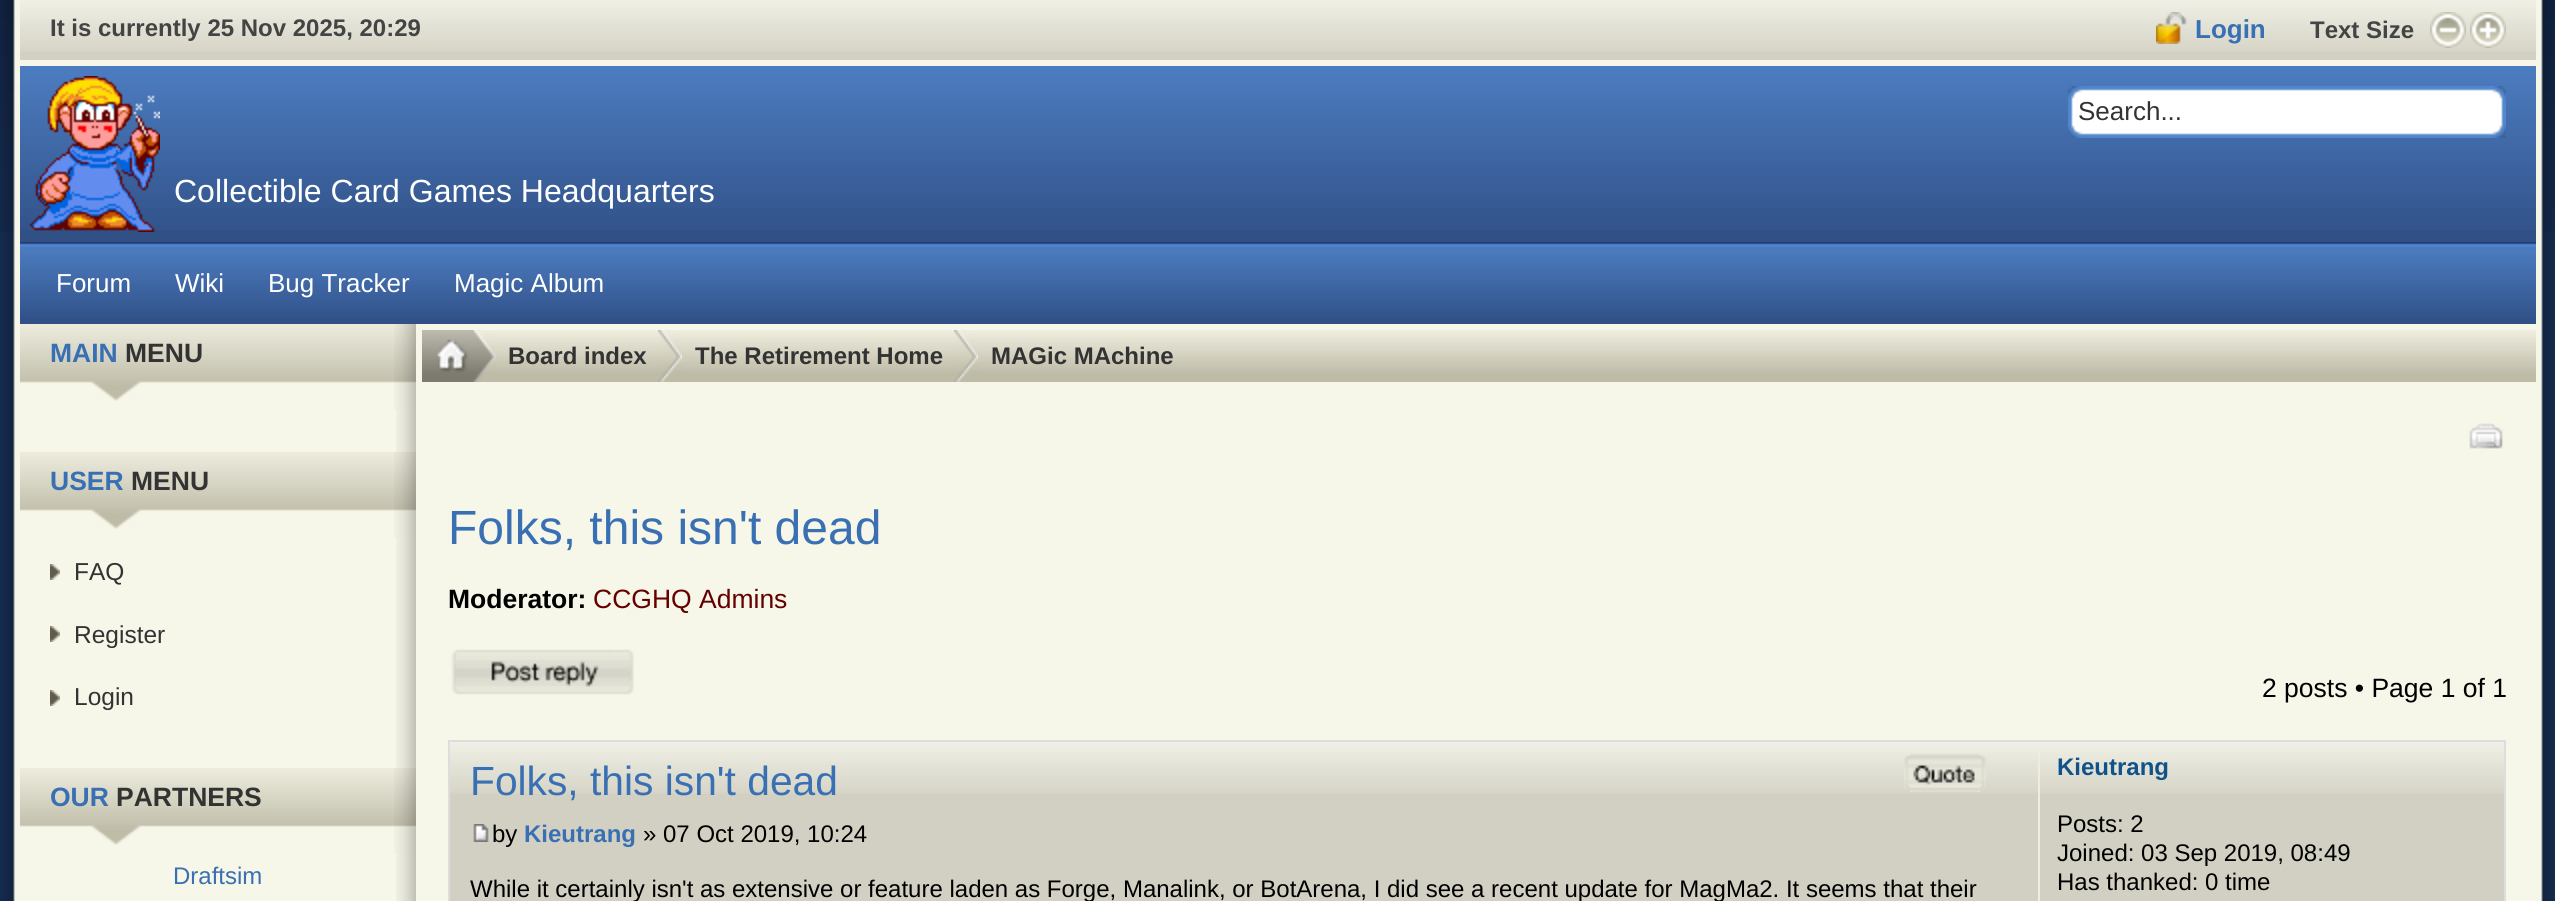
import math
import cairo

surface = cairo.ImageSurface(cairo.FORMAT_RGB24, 2555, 901)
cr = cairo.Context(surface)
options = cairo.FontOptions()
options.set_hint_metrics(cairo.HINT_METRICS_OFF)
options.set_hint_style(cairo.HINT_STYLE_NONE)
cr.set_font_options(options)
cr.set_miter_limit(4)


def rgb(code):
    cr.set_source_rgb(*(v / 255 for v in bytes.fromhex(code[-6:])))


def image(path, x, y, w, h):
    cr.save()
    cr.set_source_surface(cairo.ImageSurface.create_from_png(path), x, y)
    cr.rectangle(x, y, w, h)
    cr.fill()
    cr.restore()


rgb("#152b4e")
cr.paint()
image("img/1.png", 0, 0, 2555, 232)
image("img/2.png", 3, 0, 17, 901)
image("img/3.png", 2536, 0, 17, 901)
rgb("#d2d0c2")
cr.rectangle(20, 52, 2516, 8)
cr.fill()
image("img/4.png", 20, 0, 2516, 52)
image("img/5.png", 2156, 12, 31, 32)
image("img/6.png", 2430, 12, 36, 36)
image("img/7.png", 2470, 12, 36, 36)
rgb("#305086")
cr.rectangle(20, 230, 2516, 12)
cr.fill()
image("img/8.png", 20, 66, 2516, 164)
rgb("#f6f6e9")
cr.rectangle(20, 60, 2516, 6)
cr.fill()
image("img/9.png", 2068, 86, 438, 52)
image("img/10.png", 30, 76, 130, 156)
rgb("#305086")
cr.rectangle(20, 318, 2516, 6)
cr.fill()
image("img/11.png", 20, 242, 2516, 76)
rgb("#f6f6e9")
cr.rectangle(20, 324, 2516, 577)
cr.fill()
image("img/12.png", 396, 410, 20, 491)
image("img/13.png", 20, 324, 374, 86)
image("img/14.png", 394, 324, 22, 86)
image("img/15.png", 91, 381, 50, 20)
image("img/13.png", 20, 452, 374, 86)
image("img/14.png", 394, 452, 22, 86)
image("img/15.png", 91, 509, 50, 20)
image("img/16.png", 50, 564, 10, 16)
image("img/16.png", 50, 626, 10, 16)
image("img/16.png", 50, 690, 10, 16)
image("img/13.png", 20, 768, 374, 86)
image("img/14.png", 394, 768, 22, 86)
image("img/15.png", 91, 825, 50, 20)
image("img/17.png", 496, 330, 2040, 52)
image("img/18.png", 422, 330, 74, 52)
image("img/19.png", 658, 330, 24, 52)
image("img/19.png", 954, 330, 24, 52)
image("img/20.png", 2469, 423, 34, 26)
image("img/21.png", 450, 649, 184, 46)
rgb("#d2d0c2")
cr.rectangle(450, 794, 2054, 107)
cr.fill()
image("img/22.png", 450, 742, 2054, 52)
cr.rectangle(449, 741, 2056, 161)
rgb("#dddddd")
cr.stroke()
image("img/23.png", 1904, 754, 82, 38)
image("img/24.png", 1904, 754, 82, 34)
image("img/25.png", 473, 824, 16, 18)
rgb("#f0eddc")
cr.rectangle(2038, 752, 2, 149)
cr.fill()
cr.select_font_face("Liberation Sans", cairo.FONT_SLANT_NORMAL, cairo.FONT_WEIGHT_BOLD)
cr.set_font_size(24)
rgb("#444444")
cr.move_to(50, 36)
cr.show_text("It is currently 25 Nov 2025, 20:29")
cr.set_font_size(26)
rgb("#3970b4")
cr.move_to(2195, 38)
cr.show_text("Login")
cr.set_font_size(24)
rgb("#444444")
cr.move_to(2310, 38)
cr.show_text("Text Size")
cr.select_font_face("Liberation Sans")
cr.set_font_size(26)
rgb("#333333")
cr.move_to(2078, 120)
cr.show_text("Search...")
cr.set_font_size(32)
rgb("#ffffff")
cr.move_to(174, 202)
cr.show_text("Collectible Card Games Headquarters")
cr.set_font_size(26)
for x, y, s in [
    (56, 292, "Forum"),
    (175, 292, "Wiki"),
    (268, 292, "Bug Tracker"),
    (454, 292, "Magic Album"),
]:
    cr.move_to(x, y)
    cr.show_text(s)
cr.select_font_face("Liberation Sans", cairo.FONT_SLANT_NORMAL, cairo.FONT_WEIGHT_BOLD)
cr.set_font_size(26.5)
rgb("#3970b4")
cr.move_to(50, 362)
cr.show_text("MAIN")
rgb("#333333")
cr.move_to(125, 362)
cr.show_text("MENU")
rgb("#3970b4")
cr.move_to(50, 490)
cr.show_text("USER")
rgb("#333333")
cr.move_to(131, 490)
cr.show_text("MENU")
cr.select_font_face("Liberation Sans")
cr.set_font_size(24.5)
for x, y, s in [
    (74, 580, "FAQ"),
    (74, 643, "Register"),
    (74, 705, "Login"),
]:
    cr.move_to(x, y)
    cr.show_text(s)
cr.select_font_face("Liberation Sans", cairo.FONT_SLANT_NORMAL, cairo.FONT_WEIGHT_BOLD)
cr.set_font_size(26.5)
rgb("#3970b4")
cr.move_to(50, 806)
cr.show_text("OUR")
rgb("#333333")
cr.move_to(116, 806)
cr.show_text("PARTNERS")
cr.select_font_face("Liberation Sans")
cr.set_font_size(24)
rgb("#3970b4")
cr.move_to(173, 884)
cr.show_text("Draftsim")
cr.select_font_face("Liberation Sans", cairo.FONT_SLANT_NORMAL, cairo.FONT_WEIGHT_BOLD)
rgb("#333333")
for x, y, s in [
    (508, 364, "Board index"),
    (695, 364, "The Retirement Home"),
    (991, 364, "MAGic MAchine"),
]:
    cr.move_to(x, y)
    cr.show_text(s)
cr.select_font_face("Liberation Sans")
cr.set_font_size(48)
rgb("#3970b4")
cr.move_to(448, 544)
cr.show_text("Folks, this isn't dead")
cr.select_font_face("Liberation Sans", cairo.FONT_SLANT_NORMAL, cairo.FONT_WEIGHT_BOLD)
cr.set_font_size(26.5)
rgb("#000000")
cr.move_to(448, 608)
cr.show_text("Moderator:")
cr.select_font_face("Liberation Sans")
rgb("#660000")
cr.move_to(593, 608)
cr.show_text("CCGHQ Admins")
rgb("#000000")
cr.move_to(2262, 697)
cr.show_text("2 posts • Page 1 of 1")
cr.set_font_size(40.75)
rgb("#3970b4")
cr.move_to(470, 795)
cr.show_text("Folks, this isn't dead")
cr.set_font_size(24)
rgb("#000000")
cr.move_to(492, 842)
cr.show_text("by")
cr.select_font_face("Liberation Sans", cairo.FONT_SLANT_NORMAL, cairo.FONT_WEIGHT_BOLD)
rgb("#3970b4")
cr.move_to(524, 842)
cr.show_text("Kieutrang")
cr.select_font_face("Liberation Sans")
rgb("#000000")
cr.move_to(643, 842)
cr.show_text("» 07 Oct 2019, 10:24")
cr.move_to(470, 897)
cr.show_text("While it certainly isn't as extensive or feature laden as Forge, Manalink, or BotArena, I did see a recent update for MagMa2. It seems that their")
cr.select_font_face("Liberation Sans", cairo.FONT_SLANT_NORMAL, cairo.FONT_WEIGHT_BOLD)
rgb("#105289")
cr.move_to(2057, 775)
cr.show_text("Kieutrang")
cr.select_font_face("Liberation Sans")
rgb("#000000")
for x, y, s in [
    (2057, 832, "Posts: 2"),
    (2057, 861, "Joined: 03 Sep 2019, 08:49"),
    (2057, 890, "Has thanked: 0 time"),
]:
    cr.move_to(x, y)
    cr.show_text(s)
surface.write_to_png("page.png")
